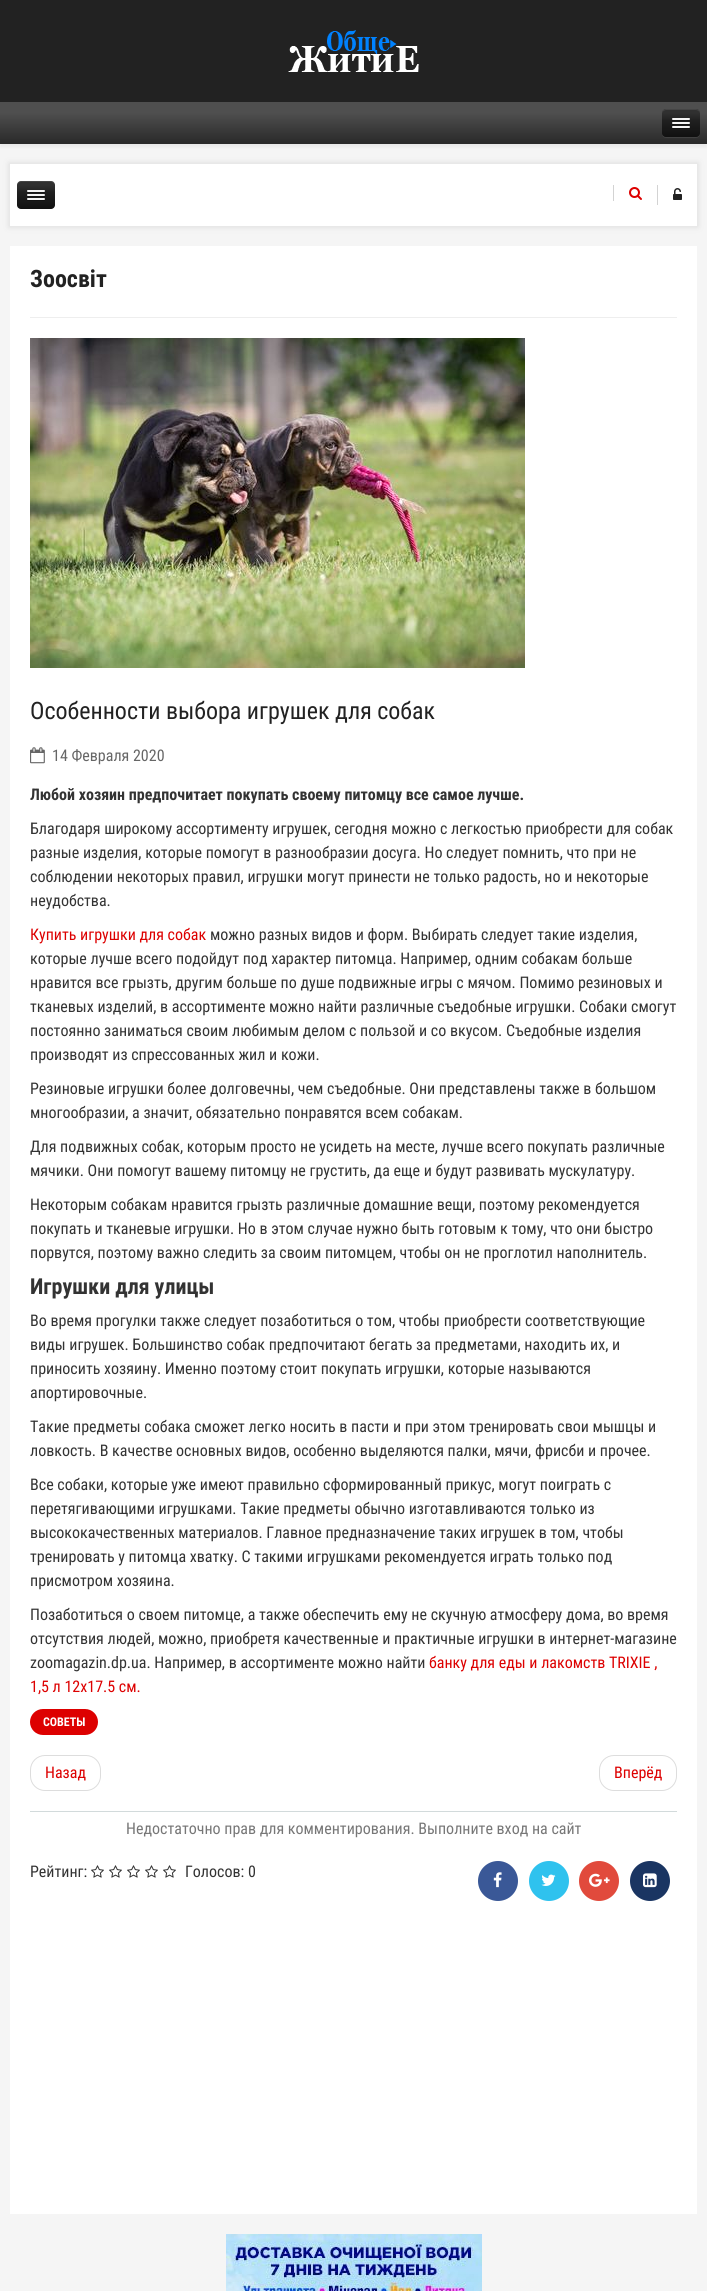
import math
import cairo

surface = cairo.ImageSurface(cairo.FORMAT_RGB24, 707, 2291)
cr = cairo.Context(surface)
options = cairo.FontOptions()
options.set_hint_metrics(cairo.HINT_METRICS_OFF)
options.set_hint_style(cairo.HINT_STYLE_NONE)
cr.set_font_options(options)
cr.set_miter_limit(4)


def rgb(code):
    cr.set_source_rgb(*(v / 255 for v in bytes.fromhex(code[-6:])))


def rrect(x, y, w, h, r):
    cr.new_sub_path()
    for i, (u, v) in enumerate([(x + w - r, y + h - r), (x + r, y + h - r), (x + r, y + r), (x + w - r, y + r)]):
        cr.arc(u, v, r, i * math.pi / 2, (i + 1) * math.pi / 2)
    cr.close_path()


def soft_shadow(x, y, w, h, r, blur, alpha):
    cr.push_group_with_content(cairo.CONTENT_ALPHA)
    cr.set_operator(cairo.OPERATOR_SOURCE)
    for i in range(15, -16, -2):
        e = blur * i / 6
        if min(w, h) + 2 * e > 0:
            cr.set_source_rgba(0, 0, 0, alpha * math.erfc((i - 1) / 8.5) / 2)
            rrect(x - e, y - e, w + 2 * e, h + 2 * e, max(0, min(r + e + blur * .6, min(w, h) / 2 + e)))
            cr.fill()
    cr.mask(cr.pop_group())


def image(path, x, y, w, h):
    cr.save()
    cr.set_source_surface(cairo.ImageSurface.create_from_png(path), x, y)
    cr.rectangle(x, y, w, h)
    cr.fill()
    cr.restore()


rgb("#f5f5f5")
cr.paint()
rgb("#000000")
soft_shadow(0, 3, 707, 144, 0, 1.5, 0.05)
rgb("#222222")
cr.rectangle(0, 0, 707, 102)
cr.fill()
image("img/1.png", 288, 30, 131, 42)
gradient = cairo.LinearGradient(354, 144, 354, 102)
gradient.add_color_stop_rgba(0.04, 0.169, 0.169, 0.169, 1)
gradient.add_color_stop_rgba(0.36, 0.231, 0.231, 0.231, 1)
gradient.add_color_stop_rgba(0.75, 0.31, 0.31, 0.31, 1)
cr.set_source(gradient)
cr.rectangle(0, 102, 707, 42)
cr.fill()
rgb("#414141")
cr.new_path()
cr.move_to(662, 133)
cr.curve_to(662, 139, 666.5, 138, 671, 138)
cr.line_to(691, 138)
cr.curve_to(695.5, 138, 700, 139, 700, 133)
cr.curve_to(700, 135, 698, 137, 696, 137)
cr.line_to(666, 137)
cr.curve_to(664, 137, 662, 135, 662, 133)
cr.close_path()
cr.fill()
gradient = cairo.LinearGradient(681, 137, 681, 109)
gradient.add_color_stop_rgba(0.01, 0.067, 0.067, 0.067, 1)
gradient.add_color_stop_rgba(0.57, 0.122, 0.122, 0.122, 1)
gradient.add_color_stop_rgba(0.85, 0.188, 0.188, 0.188, 1)
cr.set_source(gradient)
rrect(662, 109, 38, 28, 4)
cr.fill()
rgb("#454545")
cr.new_path()
cr.move_to(666, 110)
cr.line_to(696, 110)
cr.curve_to(698, 110, 700, 112, 700, 114)
cr.curve_to(700, 108, 695.5, 109, 691, 109)
cr.line_to(671, 109)
cr.curve_to(666.5, 109, 662, 108, 662, 114)
cr.curve_to(662, 112, 664, 110, 666, 110)
cr.close_path()
cr.fill()
rgb("#181818")
cr.new_path()
cr.move_to(672, 119.5)
cr.curve_to(671, 121.5, 675.5, 121, 675.5, 121)
cr.line_to(686.5, 121)
cr.curve_to(686.5, 121, 691, 121.5, 690, 119.5)
cr.curve_to(689, 120.5, 682.5, 120, 681, 120)
cr.curve_to(679.5, 120, 673, 120.5, 672, 119.5)
cr.close_path()
cr.fill()
rgb("#f5f5f5")
rrect(672, 118, 18, 2, 1)
cr.fill()
rgb("#151515")
cr.new_path()
cr.move_to(672, 123.5)
cr.curve_to(671, 125.5, 675.5, 125, 675.5, 125)
cr.line_to(686.5, 125)
cr.curve_to(686.5, 125, 691, 125.5, 690, 123.5)
cr.curve_to(689, 124.5, 682.5, 124, 681, 124)
cr.curve_to(679.5, 124, 673, 124.5, 672, 123.5)
cr.close_path()
cr.fill()
rgb("#f5f5f5")
rrect(672, 122, 18, 2, 1)
cr.fill()
rgb("#121212")
cr.new_path()
cr.move_to(672, 127.5)
cr.curve_to(671, 129.5, 675.5, 129, 675.5, 129)
cr.line_to(686.5, 129)
cr.curve_to(686.5, 129, 691, 129.5, 690, 127.5)
cr.curve_to(689, 128.5, 682.5, 128, 681, 128)
cr.curve_to(679.5, 128, 673, 128.5, 672, 127.5)
cr.close_path()
cr.fill()
rgb("#f5f5f5")
rrect(672, 126, 18, 2, 1)
cr.fill()
rgb("#dddddd")
soft_shadow(9, 163, 689, 64, 0, 3, 1)
rgb("#ffffff")
cr.rectangle(10, 164, 687, 62)
cr.fill()
gradient = cairo.LinearGradient(36, 209, 36, 181)
gradient.add_color_stop_rgba(0.01, 0.067, 0.067, 0.067, 1)
gradient.add_color_stop_rgba(0.57, 0.122, 0.122, 0.122, 1)
gradient.add_color_stop_rgba(0.85, 0.188, 0.188, 0.188, 1)
cr.set_source(gradient)
rrect(17, 181, 38, 28, 4)
cr.fill()
cr.set_source_rgba(1, 1, 1, 0.1)
cr.new_path()
cr.move_to(21, 182)
cr.line_to(51, 182)
cr.curve_to(53, 182, 55, 184, 55, 186)
cr.curve_to(55, 180, 50.5, 181, 46, 181)
cr.line_to(26, 181)
cr.curve_to(21.5, 181, 17, 180, 17, 186)
cr.curve_to(17, 184, 19, 182, 21, 182)
cr.close_path()
cr.fill()
rgb("#181818")
cr.new_path()
cr.move_to(27, 191.5)
cr.curve_to(26, 193.5, 30.5, 193, 30.5, 193)
cr.line_to(41.5, 193)
cr.curve_to(41.5, 193, 46, 193.5, 45, 191.5)
cr.curve_to(44, 192.5, 37.5, 192, 36, 192)
cr.curve_to(34.5, 192, 28, 192.5, 27, 191.5)
cr.close_path()
cr.fill()
rgb("#f5f5f5")
rrect(27, 190, 18, 2, 1)
cr.fill()
rgb("#151515")
cr.new_path()
cr.move_to(27, 195.5)
cr.curve_to(26, 197.5, 30.5, 197, 30.5, 197)
cr.line_to(41.5, 197)
cr.curve_to(41.5, 197, 46, 197.5, 45, 195.5)
cr.curve_to(44, 196.5, 37.5, 196, 36, 196)
cr.curve_to(34.5, 196, 28, 196.5, 27, 195.5)
cr.close_path()
cr.fill()
rgb("#f5f5f5")
rrect(27, 194, 18, 2, 1)
cr.fill()
rgb("#121212")
cr.new_path()
cr.move_to(27, 199.5)
cr.curve_to(26, 201.5, 30.5, 201, 30.5, 201)
cr.line_to(41.5, 201)
cr.curve_to(41.5, 201, 46, 201.5, 45, 199.5)
cr.curve_to(44, 200.5, 37.5, 200, 36, 200)
cr.curve_to(34.5, 200, 28, 200.5, 27, 199.5)
cr.close_path()
cr.fill()
rgb("#f5f5f5")
rrect(27, 198, 18, 2, 1)
cr.fill()
rgb("#d3d3d3")
cr.rectangle(613, 185, 1, 16)
cr.fill()
image("img/2.png", 629, 187, 13, 13)
cr.rectangle(657, 185, 1, 20)
cr.fill()
image("img/3.png", 673, 188, 9, 12)
rgb("#ffffff")
cr.rectangle(10, 246, 687, 1968)
cr.fill()
rgb("#eeeeee")
cr.rectangle(30, 317, 647, 1)
cr.fill()
image("img/4.png", 30, 338, 495, 330)
image("img/5.png", 30, 747, 15, 17)
rgb("#dd0000")
rrect(30, 1709, 68, 26, 13)
cr.fill()
rrect(30.5, 1755.5, 70, 35, 14.5)
rgb("#dddddd")
cr.set_line_width(1)
cr.stroke()
rrect(599.5, 1755.5, 77, 35, 14.5)
cr.stroke()
rgb("#d2dadb")
cr.rectangle(30, 1811, 647, 1)
cr.fill()
image("img/6.png", 91, 1865, 13, 13)
image("img/6.png", 109, 1865, 13, 13)
image("img/6.png", 127, 1865, 13, 13)
image("img/6.png", 145, 1865, 13, 13)
image("img/6.png", 163, 1865, 13, 13)
rgb("#3a5897")
cr.arc(498, 1881, 20, 0, 2 * math.pi)
cr.fill()
image("img/7.png", 493, 1872, 9, 16)
rgb("#2fc2ee")
cr.arc(549, 1881, 20, 0, 2 * math.pi)
cr.fill()
image("img/8.png", 541, 1874, 15, 12)
rgb("#e14a3c")
cr.arc(599, 1881, 20, 0, 2 * math.pi)
cr.fill()
image("img/9.png", 589, 1873, 21, 14)
rgb("#1a3562")
cr.arc(650, 1881, 20, 0, 2 * math.pi)
cr.fill()
image("img/10.png", 643, 1873, 14, 15)
image("img/11.png", 226, 2234, 256, 57)
cr.select_font_face("Roboto Condensed", cairo.FONT_SLANT_NORMAL, cairo.FONT_WEIGHT_BOLD)
cr.set_font_size(24)
rgb("#222222")
cr.move_to(30, 287)
cr.show_text("Зоосвіт")
cr.select_font_face("Roboto Condensed")
cr.move_to(30, 719)
cr.show_text("Особенности выбора игрушек для собак")
cr.set_font_size(16)
rgb("#666666")
cr.move_to(52, 761)
cr.show_text("14 Февраля 2020")
cr.select_font_face("Roboto Condensed", cairo.FONT_SLANT_NORMAL, cairo.FONT_WEIGHT_BOLD)
rgb("#333333")
cr.move_to(30, 800)
cr.show_text("Любой хозяин предпочитает покупать своему питомцу все самое лучше.")
cr.select_font_face("Roboto Condensed")
for x, y, s in [
    (30, 834, "Благодаря широкому ассортименту игрушек, сегодня можно с легкостью приобрести для собак"),
    (30, 858, "разные изделия, которые помогут в разнообразии досуга. Но следует помнить, что при не"),
    (30, 882, "соблюдении некоторых правил, игрушки могут принести не только радость, но и некоторые"),
    (30, 906, "неудобства."),
]:
    cr.move_to(x, y)
    cr.show_text(s)
rgb("#dd0000")
cr.move_to(30, 940)
cr.show_text("Купить игрушки для собак")
rgb("#333333")
for x, y, s in [
    (210, 940, "можно разных видов и форм. Выбирать следует такие изделия,"),
    (30, 964, "которые лучше всего подойдут под характер питомца. Например, одним собакам больше"),
    (30, 988, "нравится все грызть, другим больше по душе подвижные игры с мячом. Помимо резиновых и"),
    (30, 1012, "тканевых изделий, в ассортименте можно найти различные съедобные игрушки. Собаки смогут"),
    (30, 1036, "постоянно заниматься своим любимым делом с пользой и со вкусом. Съедобные изделия"),
    (30, 1060, "производят из спрессованных жил и кожи."),
    (30, 1094, "Резиновые игрушки более долговечны, чем съедобные. Они представлены также в большом"),
    (30, 1118, "многообразии, а значит, обязательно понравятся всем собакам."),
    (30, 1152, "Для подвижных собак, которым просто не усидеть на месте, лучше всего покупать различные"),
    (30, 1176, "мячики. Они помогут вашему питомцу не грустить, да еще и будут развивать мускулатуру."),
    (30, 1210, "Некоторым собакам нравится грызть различные домашние вещи, поэтому рекомендуется"),
    (30, 1234, "покупать и тканевые игрушки. Но в этом случае нужно быть готовым к тому, что они быстро"),
    (30, 1258, "порвутся, поэтому важно следить за своим питомцем, чтобы он не проглотил наполнитель."),
]:
    cr.move_to(x, y)
    cr.show_text(s)
cr.select_font_face("Roboto Condensed", cairo.FONT_SLANT_NORMAL, cairo.FONT_WEIGHT_BOLD)
cr.set_font_size(22)
cr.move_to(30, 1294)
cr.show_text("Игрушки для улицы")
cr.select_font_face("Roboto Condensed")
cr.set_font_size(16)
for x, y, s in [
    (30, 1326, "Во время прогулки также следует позаботиться о том, чтобы приобрести соответствующие"),
    (30, 1350, "виды игрушек. Большинство собак предпочитают бегать за предметами, находить их, и"),
    (30, 1374, "приносить хозяину. Именно поэтому стоит покупать игрушки, которые называются"),
    (30, 1398, "апортировочные."),
    (30, 1432, "Такие предметы собака сможет легко носить в пасти и при этом тренировать свои мышцы и"),
    (30, 1456, "ловкость. В качестве основных видов, особенно выделяются палки, мячи, фрисби и прочее."),
    (30, 1490, "Все собаки, которые уже имеют правильно сформированный прикус, могут поиграть с"),
    (30, 1514, "перетягивающими игрушками. Такие предметы обычно изготавливаются только из"),
    (30, 1538, "высококачественных материалов. Главное предназначение таких игрушек в том, чтобы"),
    (30, 1562, "тренировать у питомца хватку. С такими игрушками рекомендуется играть только под"),
    (30, 1586, "присмотром хозяина."),
    (30, 1620, "Позаботиться о своем питомце, а также обеспечить ему не скучную атмосферу дома, во время"),
    (30, 1644, "отсутствия людей, можно, приобретя качественные и практичные игрушки в интернет-магазине"),
    (30, 1668, "zoomagazin.dp.ua. Например, в ассортименте можно найти"),
]:
    cr.move_to(x, y)
    cr.show_text(s)
rgb("#dd0000")
cr.move_to(429, 1668)
cr.show_text("банку для еды и лакомств TRIXIE ,")
cr.move_to(30, 1692)
cr.show_text("1,5 л 12х17.5 см.")
cr.select_font_face("Roboto Condensed", cairo.FONT_SLANT_NORMAL, cairo.FONT_WEIGHT_BOLD)
cr.set_font_size(12)
rgb("#ffffff")
cr.move_to(43, 1726)
cr.show_text("СОВЕТЫ")
cr.select_font_face("Roboto Condensed")
cr.set_font_size(16)
rgb("#dd0000")
cr.move_to(45, 1778)
cr.show_text("Назад")
cr.move_to(614, 1778)
cr.show_text("Вперёд")
rgb("#777777")
cr.move_to(126, 1834)
cr.show_text("Недостаточно прав для комментирования. Выполните вход на сайт")
rgb("#333333")
cr.move_to(30, 1877)
cr.show_text("Рейтинг:")
cr.move_to(185, 1877)
cr.show_text("Голосов: 0")
surface.write_to_png("page.png")
